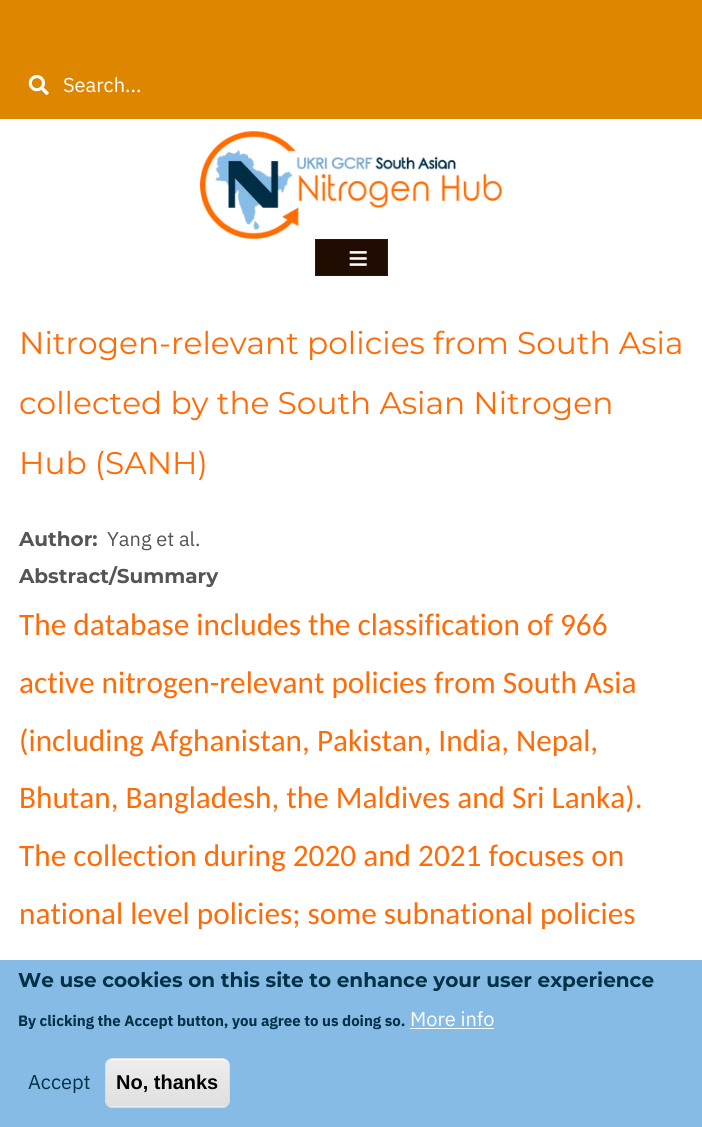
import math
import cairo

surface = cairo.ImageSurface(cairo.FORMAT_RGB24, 702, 1127)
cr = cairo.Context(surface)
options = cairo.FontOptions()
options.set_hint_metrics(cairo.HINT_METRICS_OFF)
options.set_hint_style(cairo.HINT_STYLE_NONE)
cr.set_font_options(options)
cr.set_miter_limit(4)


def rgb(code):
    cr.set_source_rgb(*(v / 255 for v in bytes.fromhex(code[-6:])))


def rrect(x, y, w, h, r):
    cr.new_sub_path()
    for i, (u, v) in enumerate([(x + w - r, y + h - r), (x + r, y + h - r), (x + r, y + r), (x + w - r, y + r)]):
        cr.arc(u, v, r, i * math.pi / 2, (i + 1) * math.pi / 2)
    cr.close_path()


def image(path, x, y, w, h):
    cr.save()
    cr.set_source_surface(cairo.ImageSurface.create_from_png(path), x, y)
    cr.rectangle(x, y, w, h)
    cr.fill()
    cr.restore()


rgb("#ffffff")
cr.paint()
rgb("#df8601")
cr.rectangle(0, 0, 702, 119)
cr.fill()
image("img/1.png", 28, 75, 21, 20)
image("img/2.png", 200, 131, 302, 108)
rgb("#210c02")
cr.rectangle(315.5, 239.5, 72, 36)
cr.fill_preserve()
rgb("#381301")
cr.set_line_width(1)
cr.stroke()
rgb("#86bbe5")
cr.rectangle(0, 960, 702, 167)
cr.fill()
rgb("#ffffff")
cr.rectangle(410, 1028, 84, 1)
cr.fill()
cr.save()
rrect(105, 1058, 125, 50, 8)
cr.clip()
gradient = cairo.LinearGradient(168, 1059, 168, 1106)
gradient.add_color_stop_rgba(0.05, 0.929, 0.929, 0.929, 1)
gradient.add_color_stop_rgba(1, 0.875, 0.875, 0.875, 1)
cr.set_source(gradient)
cr.rectangle(105, 1059, 125, 47)
cr.fill()
gradient = cairo.LinearGradient(168, 1106, 168, 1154)
gradient.add_color_stop_rgba(0.05, 0.929, 0.929, 0.929, 1)
gradient.add_color_stop_rgba(1, 0.875, 0.875, 0.875, 1)
cr.set_source(gradient)
cr.rectangle(105, 1106, 125, 2)
cr.fill()
cr.restore()
cr.new_path()
cr.move_to(112, 1060)
cr.line_to(222, 1060)
cr.curve_to(226, 1060, 229, 1063, 229, 1066)
cr.curve_to(229, 1054, 210, 1059, 204, 1059)
cr.line_to(130, 1059)
cr.curve_to(125, 1059, 106, 1054, 106, 1066)
cr.curve_to(106, 1063, 109, 1060, 112, 1060)
cr.close_path()
cr.fill()
rrect(105.5, 1058.5, 124, 49, 7.5)
rgb("#dcdcdc")
cr.stroke()
cr.select_font_face("IBM Plex Sans")
cr.set_font_size(20)
rgb("#ffffff")
cr.move_to(63, 92)
cr.show_text("Search...")
cr.select_font_face("Liberation Sans", cairo.FONT_SLANT_NORMAL, cairo.FONT_WEIGHT_BOLD)
cr.set_font_size(35)
cr.move_to(348, 270)
cr.show_text("≡")
cr.select_font_face("Montserrat")
cr.set_font_size(31.25)
rgb("#ff6b06")
for x, y, s in [
    (19, 354, "Nitrogen-relevant policies from South Asia"),
    (19, 414, "collected by the South Asian Nitrogen"),
    (19, 474, "Hub (SANH)"),
]:
    cr.move_to(x, y)
    cr.show_text(s)
cr.select_font_face("Montserrat", cairo.FONT_SLANT_NORMAL, cairo.FONT_WEIGHT_BOLD)
cr.set_font_size(20)
rgb("#555555")
cr.move_to(19, 546)
cr.show_text("Author:")
cr.select_font_face("IBM Plex Sans")
cr.move_to(107, 546)
cr.show_text("Yang et al.")
cr.select_font_face("Montserrat", cairo.FONT_SLANT_NORMAL, cairo.FONT_WEIGHT_BOLD)
cr.move_to(19, 583)
cr.show_text("Abstract/Summary")
cr.select_font_face("Carlito")
cr.set_font_size(31.25)
rgb("#ff6b06")
for x, y, s in [
    (19, 635, "The database includes the classification of 966"),
    (19, 693, "active nitrogen-relevant policies from South Asia"),
    (19, 751, "(including Afghanistan, Pakistan, India, Nepal,"),
    (19, 808, "Bhutan, Bangladesh, the Maldives and Sri Lanka)."),
    (19, 866, "The collection during 2020 and 2021 focuses on"),
    (19, 924, "national level policies; some subnational policies"),
]:
    cr.move_to(x, y)
    cr.show_text(s)
cr.select_font_face("Montserrat", cairo.FONT_SLANT_NORMAL, cairo.FONT_WEIGHT_BOLD)
cr.set_font_size(20)
rgb("#003147")
cr.move_to(18, 987)
cr.show_text("We use cookies on this site to enhance your user experience")
cr.select_font_face("IBM Plex Sans", cairo.FONT_SLANT_NORMAL, cairo.FONT_WEIGHT_BOLD)
cr.set_font_size(15)
cr.move_to(18, 1026)
cr.show_text("By clicking the Accept button, you agree to us doing so.")
cr.select_font_face("IBM Plex Sans")
cr.set_font_size(20)
rgb("#ffffff")
cr.move_to(410, 1026)
cr.show_text("More info")
rgb("#003147")
cr.move_to(28, 1089)
cr.show_text("Accept")
cr.select_font_face("Liberation Sans", cairo.FONT_SLANT_NORMAL, cairo.FONT_WEIGHT_BOLD)
rgb("#000000")
cr.move_to(116, 1089)
cr.show_text("No, thanks")
surface.write_to_png("page.png")
